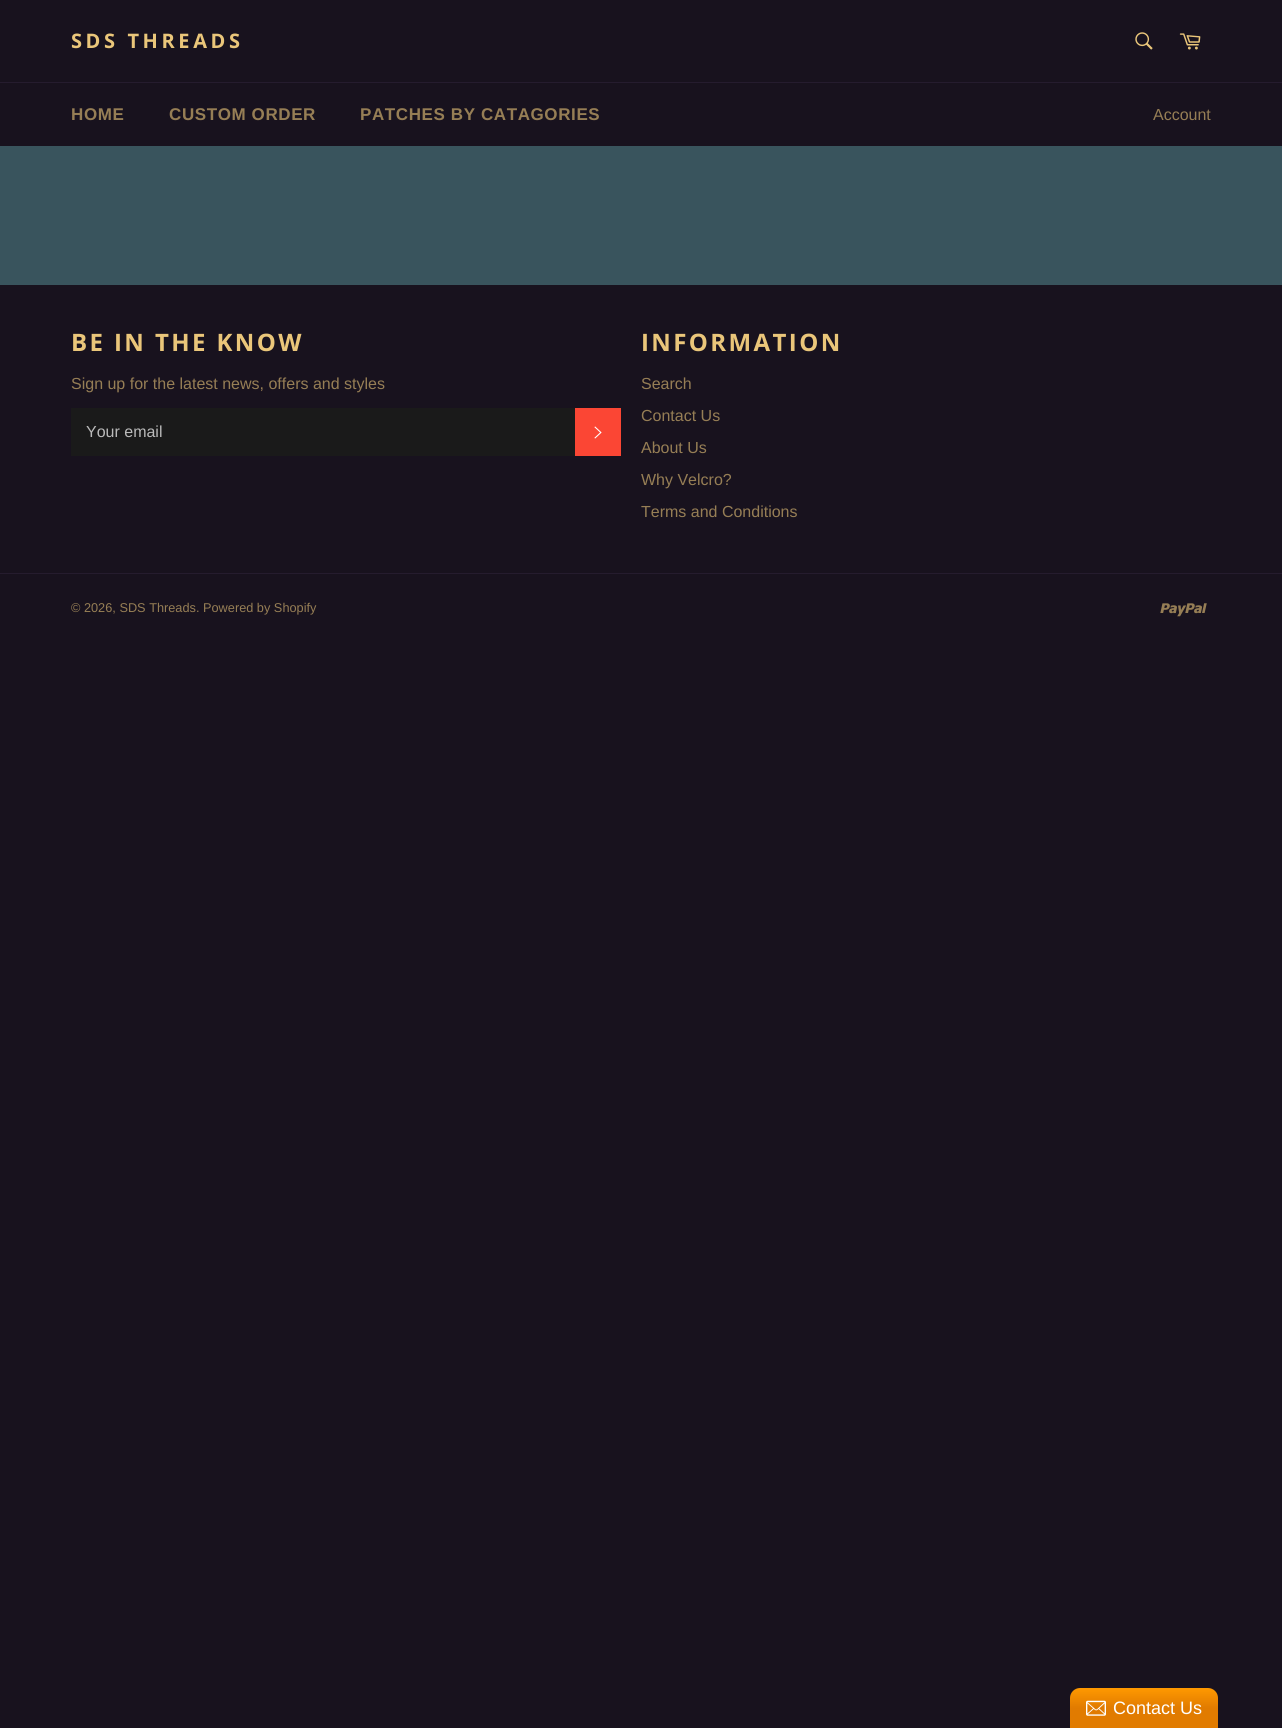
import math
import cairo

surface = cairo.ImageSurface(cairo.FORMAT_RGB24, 1282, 1728)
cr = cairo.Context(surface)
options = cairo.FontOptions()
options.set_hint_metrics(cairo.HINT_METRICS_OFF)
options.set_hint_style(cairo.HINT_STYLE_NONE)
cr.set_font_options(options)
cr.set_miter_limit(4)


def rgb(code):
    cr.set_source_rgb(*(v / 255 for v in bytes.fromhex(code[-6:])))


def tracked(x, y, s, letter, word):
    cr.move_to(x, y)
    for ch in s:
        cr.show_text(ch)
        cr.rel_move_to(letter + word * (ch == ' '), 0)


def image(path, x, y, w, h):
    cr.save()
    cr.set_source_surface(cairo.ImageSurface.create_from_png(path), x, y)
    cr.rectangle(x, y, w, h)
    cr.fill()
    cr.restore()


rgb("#18121e")
cr.paint()
rgb("#39545d")
cr.rectangle(0, 146, 1282, 139)
cr.fill()
image("img/1.png", 1135, 32, 18, 18)
image("img/2.png", 1179, 33, 22, 17)
for x, y, w, h, color in [
    (0, 82, 1282, 1, "#251c2e"),
    (71, 408, 504, 48, "#1a1a1a"),
    (575, 408, 46, 48, "#fb4634"),
]:
    rgb(color)
    cr.rectangle(x, y, w, h)
    cr.fill()
image("img/3.png", 594, 426, 8, 13)
rgb("#251c2e")
cr.rectangle(0, 573, 1282, 1)
cr.fill()
image("img/4.png", 1160, 603, 47, 14)
gradient = cairo.LinearGradient(1144, 1688, 1144, 1728)
gradient.add_color_stop_rgba(0, 1, 0.6, 0, 1)
gradient.add_color_stop_rgba(0.5, 0.882, 0.482, 0, 1)
cr.set_source(gradient)
cr.new_path()
cr.move_to(1080, 1688)
cr.line_to(1208, 1688)
cr.curve_to(1213.5, 1688, 1218, 1692.5, 1218, 1698)
cr.line_to(1218, 1728)
cr.line_to(1070, 1728)
cr.line_to(1070, 1698)
cr.curve_to(1070, 1692.5, 1074.5, 1688, 1080, 1688)
cr.close_path()
cr.fill()
image("img/5.png", 1086, 1700, 20, 16)
cr.select_font_face("Open Sans", cairo.FONT_SLANT_NORMAL, cairo.FONT_WEIGHT_BOLD)
cr.set_font_size(20)
rgb("#eac67a")
tracked(71, 48, "SDS THREADS", 3.6, 0)
cr.select_font_face("Liberation Sans", cairo.FONT_SLANT_NORMAL, cairo.FONT_WEIGHT_BOLD)
cr.set_font_size(17)
rgb("#967e55")
for x, y, s in [
    (71, 120, "HOME"),
    (169, 120, "CUSTOM ORDER"),
    (360, 120, "PATCHES BY CATAGORIES"),
]:
    tracked(x, y, s, 0.6, 0)
cr.select_font_face("Liberation Sans")
cr.set_font_size(16)
cr.move_to(1153, 120)
cr.show_text("Account")
cr.select_font_face("Open Sans", cairo.FONT_SLANT_NORMAL, cairo.FONT_WEIGHT_BOLD)
cr.set_font_size(24)
rgb("#eac67a")
tracked(71, 351, "BE IN THE KNOW", 2.4, 0)
cr.select_font_face("Liberation Sans")
cr.set_font_size(16)
rgb("#967e55")
cr.move_to(71, 389)
cr.show_text("Sign up for the latest news, offers and styles")
rgb("#bababa")
cr.move_to(86, 437)
cr.show_text("Your email")
cr.select_font_face("Open Sans", cairo.FONT_SLANT_NORMAL, cairo.FONT_WEIGHT_BOLD)
cr.set_font_size(24)
rgb("#eac67a")
tracked(641, 351, "INFORMATION", 2.4, 0)
cr.select_font_face("Liberation Sans")
cr.set_font_size(16)
rgb("#967e55")
for x, y, s in [
    (641, 389, "Search"),
    (641, 421, "Contact Us"),
    (641, 453, "About Us"),
    (641, 485, "Why Velcro?"),
    (641, 517, "Terms and Conditions"),
]:
    cr.move_to(x, y)
    cr.show_text(s)
cr.set_font_size(12.75)
cr.move_to(71, 612)
cr.show_text("© 2026, SDS Threads. Powered by Shopify")
cr.set_font_size(18)
rgb("#ffffff")
cr.move_to(1113, 1714)
cr.show_text("Contact Us")
surface.write_to_png("page.png")
